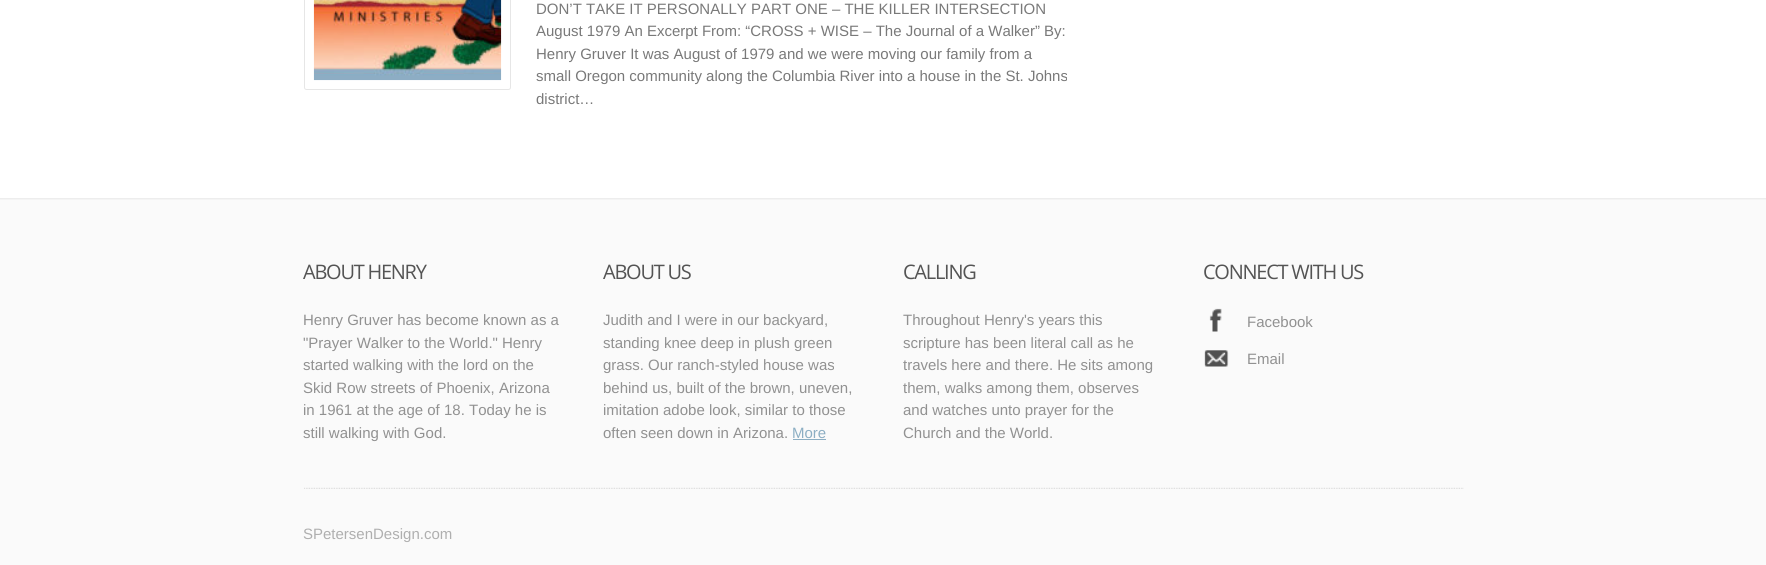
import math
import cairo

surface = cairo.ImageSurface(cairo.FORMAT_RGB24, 1766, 565)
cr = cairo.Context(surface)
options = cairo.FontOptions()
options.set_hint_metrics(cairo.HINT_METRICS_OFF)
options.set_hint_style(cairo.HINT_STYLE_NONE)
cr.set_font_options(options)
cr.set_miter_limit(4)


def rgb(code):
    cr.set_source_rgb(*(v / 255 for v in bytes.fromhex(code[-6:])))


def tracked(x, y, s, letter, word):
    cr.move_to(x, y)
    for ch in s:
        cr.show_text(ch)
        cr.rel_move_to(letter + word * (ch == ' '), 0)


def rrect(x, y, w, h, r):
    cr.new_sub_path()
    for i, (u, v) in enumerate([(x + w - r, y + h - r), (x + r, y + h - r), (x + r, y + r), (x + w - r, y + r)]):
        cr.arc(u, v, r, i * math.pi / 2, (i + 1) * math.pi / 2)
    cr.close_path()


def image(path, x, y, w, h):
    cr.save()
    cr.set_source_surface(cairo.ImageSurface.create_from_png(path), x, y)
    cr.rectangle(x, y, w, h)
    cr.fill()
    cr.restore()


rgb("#ffffff")
cr.paint()
rrect(304.5, -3.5, 206, 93, 2)
rgb("#e6e6e6")
cr.set_line_width(1)
cr.stroke()
image("img/1.png", 313, 0, 189, 81)
rgb("#fafafa")
cr.rectangle(0, 198, 1766, 367)
cr.fill()
image("img/2.png", 0, 198, 1766, 2)
rgb("#8caec3")
cr.rectangle(793, 439, 33, 1)
cr.fill()
image("img/3.png", 1209, 308, 13, 24)
image("img/4.png", 1204, 350, 25, 17)
image("img/5.png", 304, 487, 1160, 2)
cr.select_font_face("Liberation Sans")
cr.set_font_size(15)
rgb("#797979")
for x, y, s in [
    (536, 14, "DON’T TAKE IT PERSONALLY PART ONE – THE KILLER INTERSECTION"),
    (536, 36, "August 1979 An Excerpt From: “CROSS + WISE – The Journal of a Walker” By:"),
    (536, 59, "Henry Gruver It was August of 1979 and we were moving our family from a"),
    (536, 81, "small Oregon community along the Columbia River into a house in the St. Johns"),
    (536, 104, "district…"),
]:
    cr.move_to(x, y)
    cr.show_text(s)
cr.select_font_face("Open Sans")
cr.set_font_size(20)
rgb("#545454")
tracked(303, 279, "ABOUT HENRY", -1.25, 0)
cr.select_font_face("Liberation Sans")
cr.set_font_size(15)
rgb("#919191")
for x, y, s in [
    (303, 325, "Henry Gruver has become known as a"),
    (303, 348, "\"Prayer Walker to the World.\" Henry"),
    (303, 370, "started walking with the lord on the"),
    (303, 393, "Skid Row streets of Phoenix, Arizona"),
    (303, 415, "in 1961 at the age of 18. Today he is"),
    (303, 438, "still walking with God."),
]:
    cr.move_to(x, y)
    cr.show_text(s)
cr.select_font_face("Open Sans")
cr.set_font_size(20)
rgb("#545454")
tracked(603, 279, "ABOUT US", -1.25, 0)
cr.select_font_face("Liberation Sans")
cr.set_font_size(15)
rgb("#919191")
for x, y, s in [
    (603, 325, "Judith and I were in our backyard,"),
    (603, 348, "standing knee deep in plush green"),
    (603, 370, "grass. Our ranch-styled house was"),
    (603, 393, "behind us, built of the brown, uneven,"),
    (603, 415, "imitation adobe look, similar to those"),
    (603, 438, "often seen down in Arizona."),
]:
    cr.move_to(x, y)
    cr.show_text(s)
rgb("#8caec3")
cr.move_to(792, 438)
cr.show_text("More")
cr.select_font_face("Open Sans")
cr.set_font_size(20)
rgb("#545454")
tracked(903, 279, "CALLING", -1.25, 0)
cr.select_font_face("Liberation Sans")
cr.set_font_size(15)
rgb("#919191")
for x, y, s in [
    (903, 325, "Throughout Henry's years this"),
    (903, 348, "scripture has been literal call as he"),
    (903, 370, "travels here and there. He sits among"),
    (903, 393, "them, walks among them, observes"),
    (903, 415, "and watches unto prayer for the"),
    (903, 438, "Church and the World."),
]:
    cr.move_to(x, y)
    cr.show_text(s)
cr.select_font_face("Open Sans")
cr.set_font_size(20)
rgb("#545454")
tracked(1203, 279, "CONNECT WITH US", -1.25, 0)
cr.select_font_face("Liberation Sans")
cr.set_font_size(15)
rgb("#919191")
cr.move_to(1247, 327)
cr.show_text("Facebook")
cr.move_to(1247, 364)
cr.show_text("Email")
rgb("#afafaf")
cr.move_to(303, 539)
cr.show_text("SPetersenDesign.com")
surface.write_to_png("page.png")
